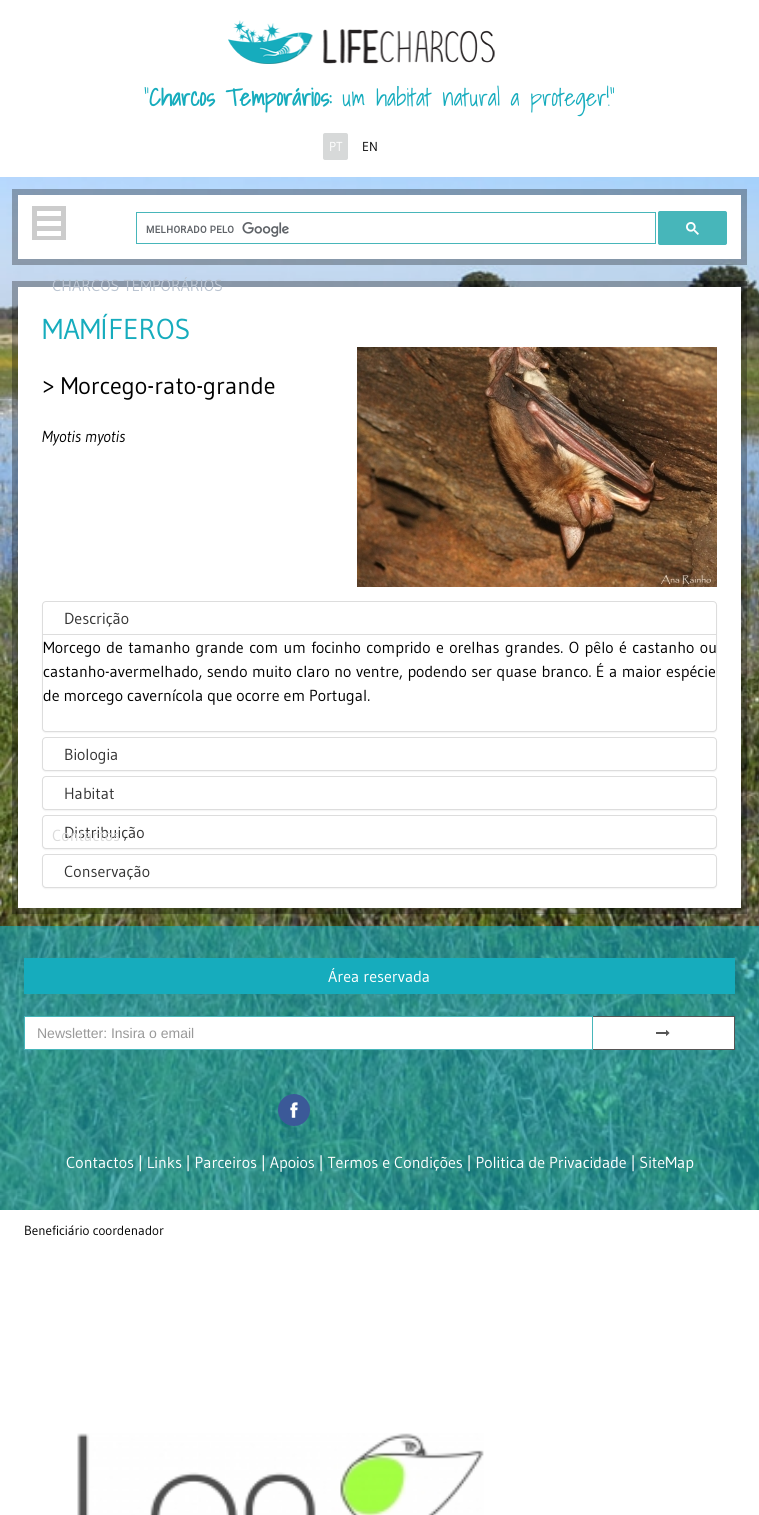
import math
import cairo

surface = cairo.ImageSurface(cairo.FORMAT_RGB24, 759, 1515)
cr = cairo.Context(surface)
options = cairo.FontOptions()
options.set_hint_metrics(cairo.HINT_METRICS_OFF)
options.set_hint_style(cairo.HINT_STYLE_NONE)
cr.set_font_options(options)
cr.set_miter_limit(4)


def rgb(code):
    cr.set_source_rgb(*(v / 255 for v in bytes.fromhex(code[-6:])))


def tracked(x, y, s, letter, word):
    cr.move_to(x, y)
    for ch in s:
        cr.show_text(ch)
        cr.rel_move_to(letter + word * (ch == ' '), 0)


def rrect(x, y, w, h, r):
    cr.new_sub_path()
    for i, (u, v) in enumerate([(x + w - r, y + h - r), (x + r, y + h - r), (x + r, y + r), (x + w - r, y + r)]):
        cr.arc(u, v, r, i * math.pi / 2, (i + 1) * math.pi / 2)
    cr.close_path()


def soft_shadow(x, y, w, h, r, blur, alpha):
    cr.push_group_with_content(cairo.CONTENT_ALPHA)
    cr.set_operator(cairo.OPERATOR_SOURCE)
    for i in range(15, -16, -2):
        e = blur * i / 6
        if min(w, h) + 2 * e > 0:
            cr.set_source_rgba(0, 0, 0, alpha * math.erfc((i - 1) / 8.5) / 2)
            rrect(x - e, y - e, w + 2 * e, h + 2 * e, max(0, min(r + e + blur * .6, min(w, h) / 2 + e)))
            cr.fill()
    cr.mask(cr.pop_group())


def image(path, x, y, w, h):
    cr.save()
    cr.set_source_surface(cairo.ImageSurface.create_from_png(path), x, y)
    cr.rectangle(x, y, w, h)
    cr.fill()
    cr.restore()


rgb("#ffffff")
cr.paint()
image("img/1.png", 228, 20, 267, 44)
rgb("#d7d9d9")
rrect(323, 133, 25, 27, 2)
cr.fill()
image("img/2.png", 0, 177, 759, 1033)
cr.set_source_rgba(0, 0, 0, 0.3)
cr.rectangle(12, 189, 735, 76)
cr.fill()
rgb("#ffffff")
cr.rectangle(18, 195, 723, 64)
cr.fill()
cr.rectangle(136.5, 212.5, 519, 31)
rgb("#47b6ba")
cr.set_line_width(1)
cr.stroke()
image("img/3.png", 146, 222, 143, 15)
rrect(658.5, 211.5, 68, 33, 1.5)
cr.fill_preserve()
cr.stroke()
image("img/4.png", 686, 222, 13, 13)
rgb("#cccccc")
cr.rectangle(32, 206, 34, 34)
cr.fill()
rgb("#ffffff")
cr.rectangle(37, 231, 24, 5)
cr.rectangle(37, 221, 24, 5)
cr.rectangle(37, 211, 24, 5)
cr.fill()
cr.set_source_rgba(0, 0, 0, 0.3)
cr.rectangle(12, 281, 735, 633)
cr.fill()
rgb("#ffffff")
cr.rectangle(18, 287, 723, 621)
cr.fill()
image("img/5.png", 357, 347, 360, 240)
rgb("#000000")
soft_shadow(42, 602, 675, 131, 4, 0.5, 0.05)
rgb("#ffffff")
rrect(42.5, 601.5, 674, 130, 3.5)
cr.fill_preserve()
rgb("#dddddd")
cr.stroke()
cr.rectangle(43, 634, 673, 1)
cr.fill()
rgb("#000000")
soft_shadow(42, 738, 675, 34, 4, 0.5, 0.05)
rgb("#ffffff")
rrect(42.5, 737.5, 674, 33, 3.5)
cr.fill_preserve()
rgb("#dddddd")
cr.stroke()
rgb("#000000")
soft_shadow(42, 777, 675, 34, 4, 0.5, 0.05)
rgb("#ffffff")
rrect(42.5, 776.5, 674, 33, 3.5)
cr.fill_preserve()
rgb("#dddddd")
cr.stroke()
rgb("#000000")
soft_shadow(42, 816, 675, 34, 4, 0.5, 0.05)
rgb("#ffffff")
rrect(42.5, 815.5, 674, 33, 3.5)
cr.fill_preserve()
rgb("#dddddd")
cr.stroke()
rgb("#000000")
soft_shadow(42, 855, 675, 34, 4, 0.5, 0.05)
rgb("#ffffff")
rrect(42.5, 854.5, 674, 33, 3.5)
cr.fill_preserve()
rgb("#dddddd")
cr.stroke()
cr.set_source_rgba(0.086, 0.678, 0.737, 0.63)
cr.rectangle(0, 926, 759, 284)
cr.fill()
rgb("#16acbd")
cr.rectangle(24, 958, 711, 36)
cr.fill()
rgb("#ffffff")
cr.rectangle(24.5, 1016.5, 568, 33)
cr.fill_preserve()
rgb("#47b6ba")
cr.stroke()
for x, y, w, h, color in [
    (593, 1017, 141, 32, "#ffffff"),
    (593, 1016, 142, 1, "#555555"),
    (734, 1016, 1, 34, "#555555"),
    (593, 1049, 142, 1, "#555555"),
]:
    rgb(color)
    cr.rectangle(x, y, w, h)
    cr.fill()
image("img/6.png", 656, 1030, 14, 6)
image("img/7.png", 278, 1094, 32, 32)
image("img/8.png", 77, 1433, 407, 82)
cr.select_font_face("Shadows Into Light Light")
cr.set_font_size(24)
rgb("#16acbd")
cr.move_to(144, 106)
cr.show_text("\"")
cr.select_font_face("Shadows Into Light", cairo.FONT_SLANT_NORMAL, cairo.FONT_WEIGHT_BOLD)
cr.move_to(149, 106)
cr.show_text("Charcos Temporários:")
cr.select_font_face("Shadows Into Light Light")
cr.move_to(342, 106)
cr.show_text("um habitat natural a proteger!\"")
cr.select_font_face("Gudea")
cr.set_font_size(13)
rgb("#ffffff")
cr.move_to(329, 151)
cr.show_text("PT")
rgb("#000000")
cr.move_to(362, 151)
cr.show_text("EN")
cr.set_font_size(16)
rgb("#bac4d1")
cr.move_to(52, 291)
cr.show_text("CHARCOS TEMPORÁRIOS")
cr.set_font_size(28.75)
rgb("#16acbd")
cr.move_to(42, 339)
cr.show_text("MAMÍFEROS")
cr.set_font_size(24)
rgb("#000000")
cr.move_to(42, 394)
cr.show_text("> Morcego-rato-grande")
cr.select_font_face("Gudea", cairo.FONT_SLANT_ITALIC)
cr.set_font_size(16)
cr.move_to(42, 442)
cr.show_text("Myotis myotis")
cr.select_font_face("Gudea")
rgb("#333333")
cr.move_to(64, 624)
cr.show_text("Descrição")
rgb("#000000")
tracked(43, 653, "Morcego de tamanho grande com um focinho comprido e orelhas grandes. O pêlo é castanho ou", 0, 1.5)
tracked(43, 677, "castanho-avermelhado, sendo muito claro no ventre, podendo ser quase branco. É a maior espécie", 0, 0.5)
cr.move_to(43, 701)
cr.show_text("de morcego cavernícola que ocorre em Portugal.")
rgb("#333333")
for x, y, s in [
    (64, 760, "Biologia"),
    (64, 799, "Habitat"),
    (64, 838, "Distribuição"),
]:
    cr.move_to(x, y)
    cr.show_text(s)
rgb("#dbdbdb")
cr.move_to(52, 841)
cr.show_text("Contactos")
rgb("#333333")
cr.move_to(64, 877)
cr.show_text("Conservação")
rgb("#ffffff")
cr.move_to(328, 982)
cr.show_text("Área reservada")
cr.select_font_face("Liberation Sans")
cr.set_font_size(14)
rgb("#999999")
cr.move_to(37, 1038)
cr.show_text("Newsletter: Insira o email")
cr.select_font_face("Gudea")
cr.set_font_size(16)
rgb("#ffffff")
cr.move_to(66, 1168)
cr.show_text("Contactos | Links | Parceiros | Apoios | Termos e Condições | Politica de Privacidade | SiteMap")
cr.set_font_size(13.25)
rgb("#000000")
cr.move_to(24, 1235)
cr.show_text("Beneficiário coordenador")
surface.write_to_png("page.png")
